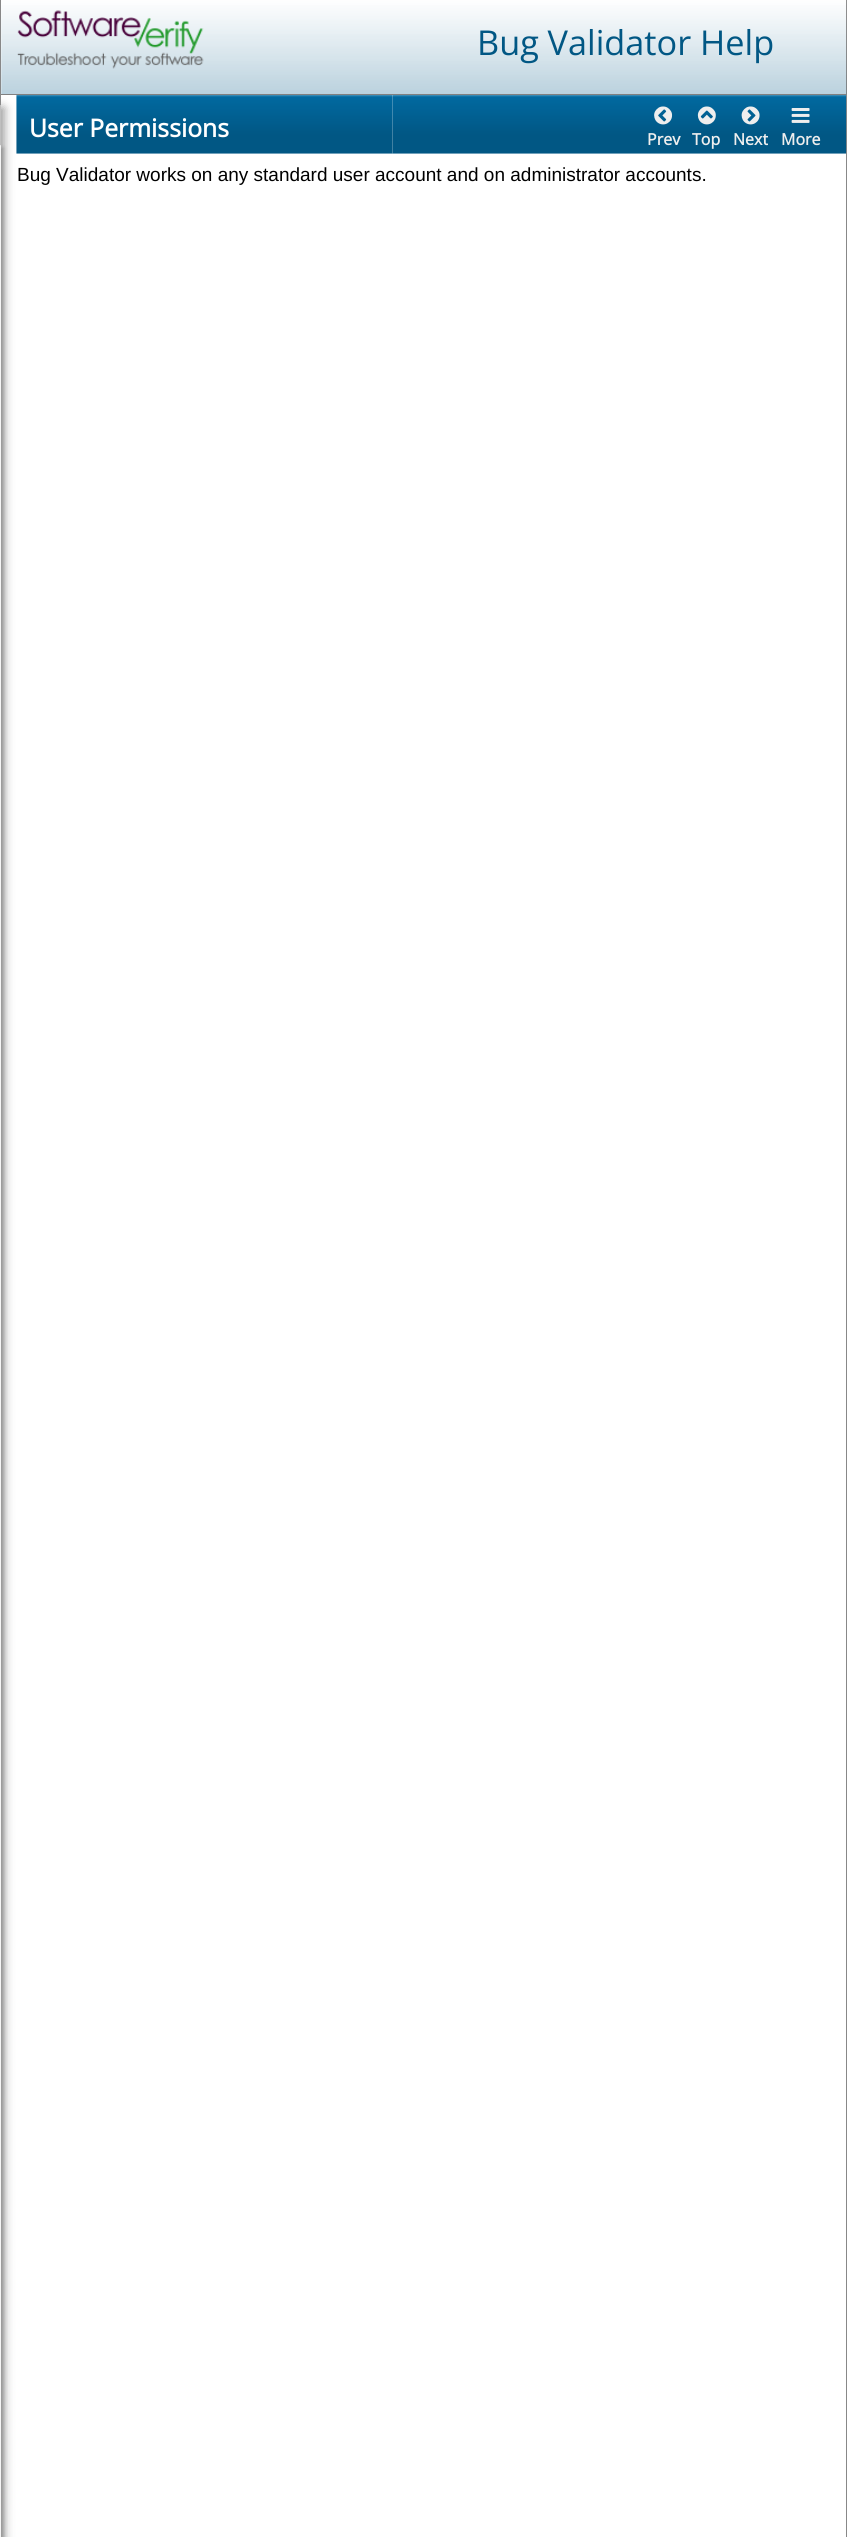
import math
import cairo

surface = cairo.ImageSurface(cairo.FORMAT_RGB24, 847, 2537)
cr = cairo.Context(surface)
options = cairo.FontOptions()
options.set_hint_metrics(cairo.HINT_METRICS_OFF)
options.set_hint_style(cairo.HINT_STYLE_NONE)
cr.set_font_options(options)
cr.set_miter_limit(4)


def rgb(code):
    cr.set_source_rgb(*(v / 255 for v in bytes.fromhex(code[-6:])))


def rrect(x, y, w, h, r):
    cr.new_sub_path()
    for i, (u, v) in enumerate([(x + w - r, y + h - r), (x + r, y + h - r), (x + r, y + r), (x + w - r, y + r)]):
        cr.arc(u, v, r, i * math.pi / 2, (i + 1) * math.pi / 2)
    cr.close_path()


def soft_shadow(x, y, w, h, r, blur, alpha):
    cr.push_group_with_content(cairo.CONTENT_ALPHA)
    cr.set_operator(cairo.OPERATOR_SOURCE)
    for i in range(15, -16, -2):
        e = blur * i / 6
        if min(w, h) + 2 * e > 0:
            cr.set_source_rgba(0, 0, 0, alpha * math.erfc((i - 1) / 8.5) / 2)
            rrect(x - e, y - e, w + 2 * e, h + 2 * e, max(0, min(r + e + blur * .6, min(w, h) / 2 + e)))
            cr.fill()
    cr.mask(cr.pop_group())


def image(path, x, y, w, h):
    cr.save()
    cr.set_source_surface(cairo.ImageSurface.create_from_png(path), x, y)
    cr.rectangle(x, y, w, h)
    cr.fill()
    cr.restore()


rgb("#ffffff")
cr.paint()
rgb("#888888")
cr.rectangle(846, 0, 1, 2537)
cr.fill()
cr.rectangle(0, 0, 1, 105)
cr.fill()
image("img/1.png", 1, 0, 846, 95)
image("img/2.png", 17, 10, 187, 59)
rgb("#808080")
cr.rectangle(1, 94, 845, 1)
cr.fill()
image("img/3.png", 16, 95, 377, 59)
rgb("#959595")
soft_shadow(-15, 108, 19, 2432, 0, 5, 1)
rgb("#f5f5f5")
cr.rectangle(0, 145, 1, 1)
cr.fill()
rgb("#bfbfbf")
cr.rectangle(0, 105, 1, 40)
cr.fill()
rgb("#959595")
soft_shadow(-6, 148, 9, 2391, 0, 2, 1)
rgb("#f5f5f5")
cr.rectangle(0, 146, 1, 2391)
cr.fill()
image("img/4.png", 392, 95, 455, 59)
image("img/5.png", 654, 106, 19, 19)
image("img/6.png", 697, 106, 19, 19)
image("img/7.png", 741, 106, 19, 19)
image("img/8.png", 791, 108, 19, 15)
cr.select_font_face("Open Sans")
cr.set_font_size(34.25)
rgb("#015784")
cr.move_to(477, 55)
cr.show_text("Bug Validator Help")
cr.select_font_face("Open Sans", cairo.FONT_SLANT_NORMAL, cairo.FONT_WEIGHT_BOLD)
cr.set_font_size(24.75)
rgb("#ffffff")
cr.move_to(29, 137)
cr.show_text("User Permissions")
cr.set_font_size(16)
rgb("#eeeeee")
for x, y, s in [
    (647, 145, "Prev"),
    (692, 145, "Top"),
    (733, 145, "Next"),
    (781, 145, "More"),
]:
    cr.move_to(x, y)
    cr.show_text(s)
cr.select_font_face("Liberation Sans")
cr.set_font_size(19)
rgb("#000000")
cr.move_to(17, 181)
cr.show_text("Bug Validator works on any standard user account and on administrator accounts.")
surface.write_to_png("page.png")
